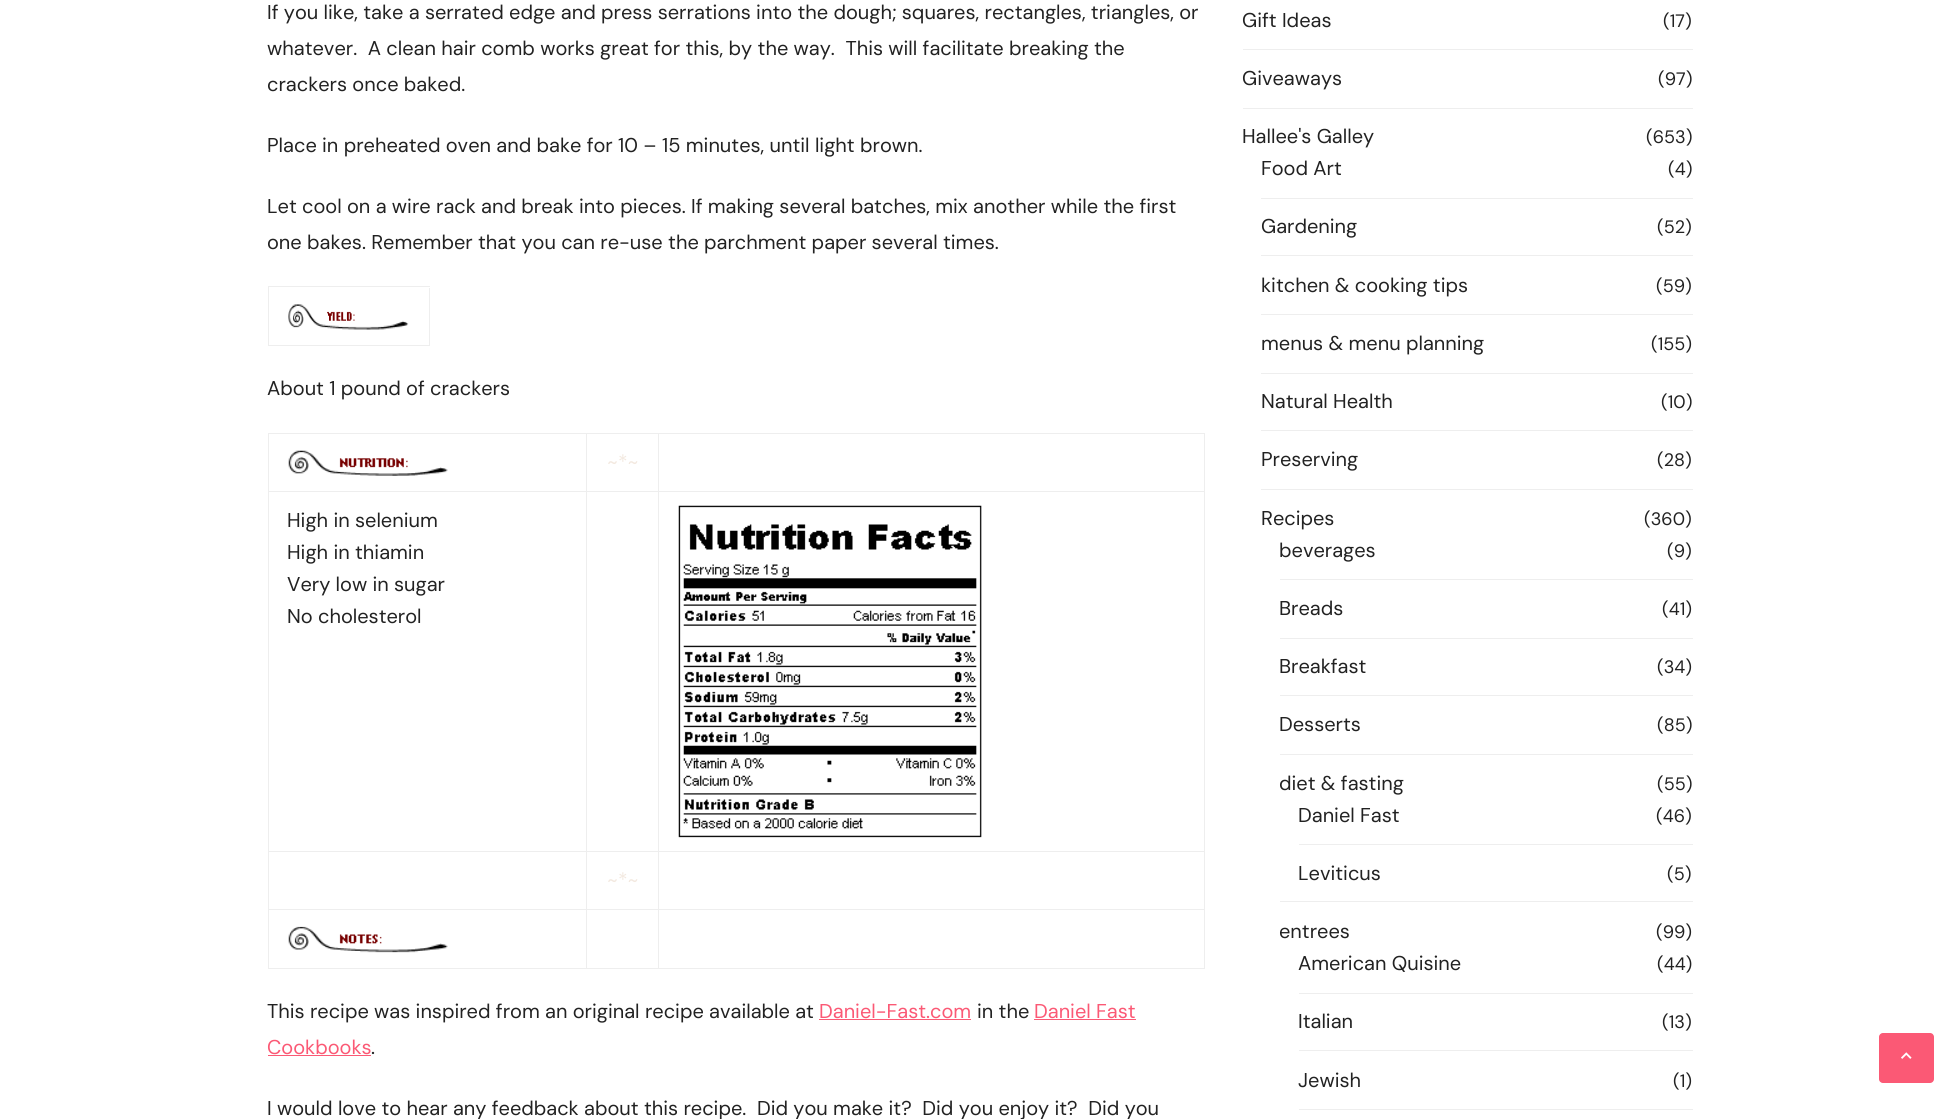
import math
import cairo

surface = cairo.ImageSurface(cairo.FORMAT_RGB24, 1958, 1119)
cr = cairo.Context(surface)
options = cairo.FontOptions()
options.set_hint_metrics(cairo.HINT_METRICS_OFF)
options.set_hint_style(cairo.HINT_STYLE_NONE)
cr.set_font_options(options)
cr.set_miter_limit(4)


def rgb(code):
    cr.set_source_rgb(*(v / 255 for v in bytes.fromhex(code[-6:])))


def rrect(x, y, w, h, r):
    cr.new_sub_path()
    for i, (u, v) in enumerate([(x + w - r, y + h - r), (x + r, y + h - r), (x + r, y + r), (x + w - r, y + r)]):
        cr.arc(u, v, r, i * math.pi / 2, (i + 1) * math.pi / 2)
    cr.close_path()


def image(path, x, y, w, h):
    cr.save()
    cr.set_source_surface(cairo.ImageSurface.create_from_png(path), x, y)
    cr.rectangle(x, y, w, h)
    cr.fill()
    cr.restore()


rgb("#ffffff")
cr.paint()
for x, y, w, h, color in [
    (268, 286, 162, 1, "#eeeeee"),
    (268, 286, 1, 60, "#eeeeee"),
    (429, 288, 1, 58, "#eeeeee"),
    (269, 345, 161, 1, "#eeeeee"),
]:
    rgb(color)
    cr.rectangle(x, y, w, h)
    cr.fill()
image("img/1.png", 288, 304, 121, 26)
for x, y, w, h, color in [
    (268, 433, 937, 1, "#eeeeee"),
    (268, 433, 1, 536, "#eeeeee"),
    (586, 434, 1, 535, "#eeeeee"),
    (269, 491, 319, 1, "#eeeeee"),
]:
    rgb(color)
    cr.rectangle(x, y, w, h)
    cr.fill()
image("img/2.png", 288, 450, 160, 26)
for x, y, w, h, color in [
    (658, 434, 1, 535, "#eeeeee"),
    (588, 491, 71, 1, "#eeeeee"),
    (1204, 434, 1, 535, "#eeeeee"),
    (659, 491, 546, 1, "#eeeeee"),
    (269, 851, 936, 1, "#eeeeee"),
]:
    rgb(color)
    cr.rectangle(x, y, w, h)
    cr.fill()
image("img/3.png", 678, 505, 304, 333)
cr.rectangle(269, 909, 936, 1)
cr.fill()
cr.rectangle(269, 968, 936, 1)
cr.fill()
image("img/4.png", 288, 926, 160, 27)
for x, y, w, h, color in [
    (819, 1019, 152, 1, "#fb5975"),
    (1034, 1019, 102, 1, "#fb5975"),
    (268, 1055, 103, 1, "#fb5975"),
    (1243, 49, 450, 1, "#eeeeee"),
    (1243, 108, 450, 1, "#eeeeee"),
    (1261, 198, 432, 1, "#eeeeee"),
    (1261, 255, 432, 1, "#eeeeee"),
    (1261, 314, 432, 1, "#eeeeee"),
    (1261, 373, 432, 1, "#eeeeee"),
    (1261, 430, 432, 1, "#eeeeee"),
    (1261, 489, 432, 1, "#eeeeee"),
    (1280, 579, 413, 1, "#eeeeee"),
    (1280, 638, 413, 1, "#eeeeee"),
    (1280, 695, 413, 1, "#eeeeee"),
    (1280, 754, 413, 1, "#eeeeee"),
    (1280, 901, 413, 1, "#eeeeee"),
    (1299, 844, 394, 1, "#eeeeee"),
    (1299, 993, 394, 1, "#eeeeee"),
    (1299, 1050, 394, 1, "#eeeeee"),
    (1299, 1109, 394, 1, "#eeeeee"),
]:
    rgb(color)
    cr.rectangle(x, y, w, h)
    cr.fill()
rgb("#fb5975")
rrect(1879, 1033, 55, 50, 4)
cr.fill()
image("img/5.png", 1901, 1052, 11, 7)
cr.select_font_face("DM Sans")
cr.set_font_size(20)
rgb("#222222")
for x, y, s in [
    (267, 19, "If you like, take a serrated edge and press serrations into the dough; squares, rectangles, triangles, or"),
    (267, 55, "whatever.  A clean hair comb works great for this, by the way.  This will facilitate breaking the"),
    (267, 91, "crackers once baked."),
    (267, 152, "Place in preheated oven and bake for 10 – 15 minutes, until light brown."),
    (267, 213, "Let cool on a wire rack and break into pieces. If making several batches, mix another while the first"),
    (267, 249, "one bakes. Remember that you can re-use the parchment paper several times."),
    (267, 395, "About 1 pound of crackers"),
]:
    cr.move_to(x, y)
    cr.show_text(s)
rgb("#f3e9e0")
cr.move_to(607, 469)
cr.show_text("~*~")
rgb("#222222")
for x, y, s in [
    (287, 527, "High in selenium"),
    (287, 559, "High in thiamin"),
    (287, 591, "Very low in sugar"),
    (287, 623, "No cholesterol"),
]:
    cr.move_to(x, y)
    cr.show_text(s)
rgb("#f3e9e0")
cr.move_to(607, 887)
cr.show_text("~*~")
rgb("#222222")
cr.move_to(267, 1018)
cr.show_text("This recipe was inspired from an original recipe available at")
rgb("#fb5975")
cr.move_to(819, 1018)
cr.show_text("Daniel-Fast.com")
rgb("#222222")
cr.move_to(977, 1018)
cr.show_text("in the")
rgb("#fb5975")
cr.move_to(1034, 1018)
cr.show_text("Daniel Fast")
cr.move_to(267, 1054)
cr.show_text("Cookbooks")
rgb("#222222")
for x, y, s in [
    (371, 1054, "."),
    (267, 1115, "I would love to hear any feedback about this recipe.  Did you make it?  Did you enjoy it?  Did you"),
    (1242, 27, "Gift Ideas"),
]:
    cr.move_to(x, y)
    cr.show_text(s)
cr.set_font_size(18)
cr.move_to(1663, 27)
cr.show_text("(17)")
cr.set_font_size(20)
cr.move_to(1242, 85)
cr.show_text("Giveaways")
cr.set_font_size(18)
cr.move_to(1658, 85)
cr.show_text("(97)")
cr.set_font_size(20)
cr.move_to(1242, 143)
cr.show_text("Hallee's Galley")
cr.set_font_size(18)
cr.move_to(1646, 143)
cr.show_text("(653)")
cr.set_font_size(20)
cr.move_to(1261, 175)
cr.show_text("Food Art")
cr.set_font_size(18)
cr.move_to(1668, 175)
cr.show_text("(4)")
cr.set_font_size(20)
cr.move_to(1261, 233)
cr.show_text("Gardening")
cr.set_font_size(18)
cr.move_to(1657, 233)
cr.show_text("(52)")
cr.set_font_size(20)
cr.move_to(1261, 292)
cr.show_text("kitchen & cooking tips")
cr.set_font_size(18)
cr.move_to(1656, 292)
cr.show_text("(59)")
cr.set_font_size(20)
cr.move_to(1261, 350)
cr.show_text("menus & menu planning")
cr.set_font_size(18)
cr.move_to(1651, 350)
cr.show_text("(155)")
cr.set_font_size(20)
cr.move_to(1261, 408)
cr.show_text("Natural Health")
cr.set_font_size(18)
cr.move_to(1661, 408)
cr.show_text("(10)")
cr.set_font_size(20)
cr.move_to(1261, 466)
cr.show_text("Preserving")
cr.set_font_size(18)
cr.move_to(1657, 466)
cr.show_text("(28)")
cr.set_font_size(20)
cr.move_to(1261, 525)
cr.show_text("Recipes")
cr.set_font_size(18)
cr.move_to(1644, 525)
cr.show_text("(360)")
cr.set_font_size(20)
cr.move_to(1279, 557)
cr.show_text("beverages")
cr.set_font_size(18)
cr.move_to(1667, 557)
cr.show_text("(9)")
cr.set_font_size(20)
cr.move_to(1279, 615)
cr.show_text("Breads")
cr.set_font_size(18)
cr.move_to(1662, 615)
cr.show_text("(41)")
cr.set_font_size(20)
cr.move_to(1279, 673)
cr.show_text("Breakfast")
cr.set_font_size(18)
cr.move_to(1657, 673)
cr.show_text("(34)")
cr.set_font_size(20)
cr.move_to(1279, 731)
cr.show_text("Desserts")
cr.set_font_size(18)
cr.move_to(1657, 731)
cr.show_text("(85)")
cr.set_font_size(20)
cr.move_to(1279, 790)
cr.show_text("diet & fasting")
cr.set_font_size(18)
cr.move_to(1657, 790)
cr.show_text("(55)")
cr.set_font_size(20)
cr.move_to(1298, 822)
cr.show_text("Daniel Fast")
cr.set_font_size(18)
cr.move_to(1656, 822)
cr.show_text("(46)")
cr.set_font_size(20)
cr.move_to(1298, 880)
cr.show_text("Leviticus")
cr.set_font_size(18)
cr.move_to(1667, 880)
cr.show_text("(5)")
cr.set_font_size(20)
cr.move_to(1279, 938)
cr.show_text("entrees")
cr.set_font_size(18)
cr.move_to(1656, 938)
cr.show_text("(99)")
cr.set_font_size(20)
cr.move_to(1298, 970)
cr.show_text("American Quisine")
cr.set_font_size(18)
cr.move_to(1657, 970)
cr.show_text("(44)")
cr.set_font_size(20)
cr.move_to(1298, 1028)
cr.show_text("Italian")
cr.set_font_size(18)
cr.move_to(1662, 1028)
cr.show_text("(13)")
cr.set_font_size(20)
cr.move_to(1298, 1087)
cr.show_text("Jewish")
cr.set_font_size(18)
cr.move_to(1673, 1087)
cr.show_text("(1)")
surface.write_to_png("page.png")
